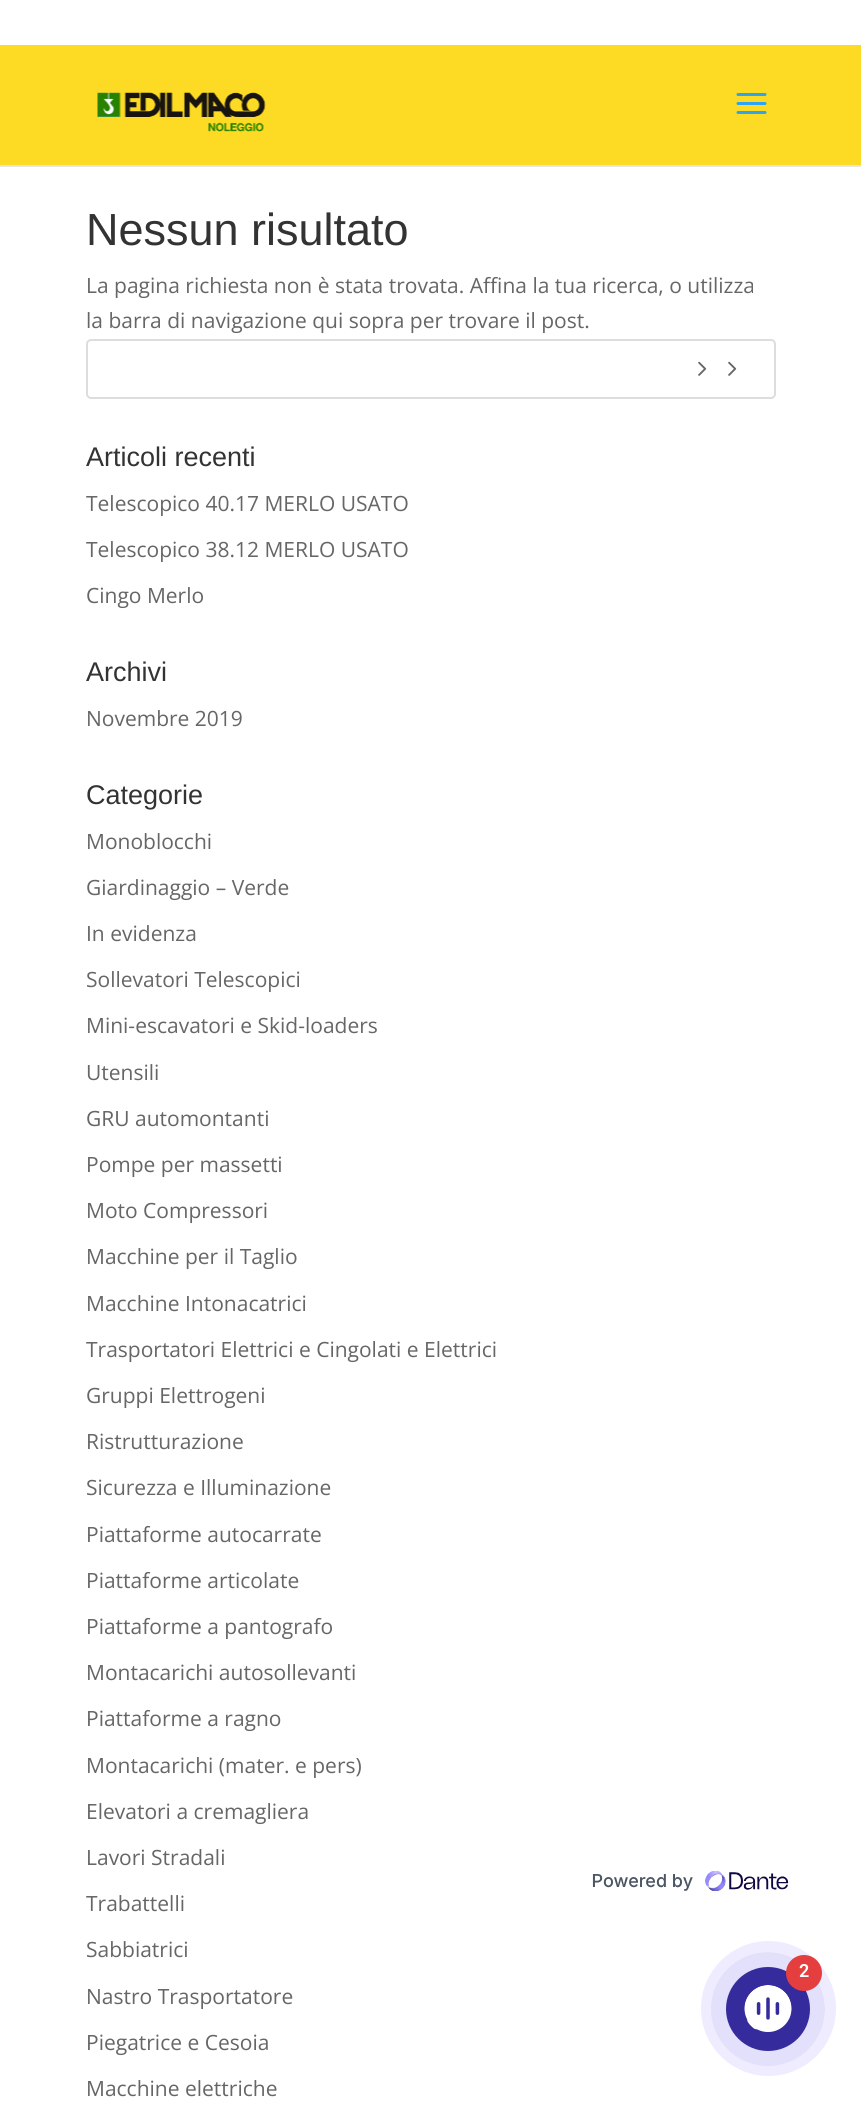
import math
import cairo

surface = cairo.ImageSurface(cairo.FORMAT_RGB24, 861, 2101)
cr = cairo.Context(surface)
options = cairo.FontOptions()
options.set_hint_metrics(cairo.HINT_METRICS_OFF)
options.set_hint_style(cairo.HINT_STYLE_NONE)
cr.set_font_options(options)
cr.set_miter_limit(4)


def rgb(code):
    cr.set_source_rgb(*(v / 255 for v in bytes.fromhex(code[-6:])))


def rrect(x, y, w, h, r):
    cr.new_sub_path()
    for i, (u, v) in enumerate([(x + w - r, y + h - r), (x + r, y + h - r), (x + r, y + r), (x + w - r, y + r)]):
        cr.arc(u, v, r, i * math.pi / 2, (i + 1) * math.pi / 2)
    cr.close_path()


def image(path, x, y, w, h):
    cr.save()
    cr.set_source_surface(cairo.ImageSurface.create_from_png(path), x, y)
    cr.rectangle(x, y, w, h)
    cr.fill()
    cr.restore()


rgb("#ffffff")
cr.paint()
rgb("#e6e6e6")
cr.rectangle(0, 165, 861, 2)
cr.fill()
rgb("#fddb24")
cr.rectangle(0, 45, 861, 120)
cr.fill()
image("img/1.png", 97, 92, 169, 40)
image("img/2.png", 736, 93, 31, 21)
rrect(87, 340, 688, 58, 4)
rgb("#dddddd")
cr.stroke()
image("img/3.png", 698, 361, 39, 15)
image("img/4.png", 592, 1871, 197, 20)
cr.arc(768.5, 2008.5, 62, 0, 2 * math.pi)
rgb("#eeecfe")
cr.set_line_width(11)
cr.stroke()
rgb("#e2e0fb")
cr.arc(768, 2009, 57, 0, 2 * math.pi)
cr.fill()
rgb("#362b9d")
cr.arc(768, 2009, 42, 0, 2 * math.pi)
cr.fill()
image("img/5.png", 744, 1985, 48, 47)
rgb("#e53e3e")
cr.arc(804, 1973, 18, 0, 2 * math.pi)
cr.fill()
cr.select_font_face("Liberation Sans")
cr.set_font_size(45)
rgb("#333333")
cr.move_to(86, 245)
cr.show_text("Nessun risultato")
cr.select_font_face("Open Sans")
cr.set_font_size(21)
rgb("#666666")
cr.move_to(86, 293)
cr.show_text("La pagina richiesta non è stata trovata. Affina la tua ricerca, o utilizza")
cr.move_to(86, 328)
cr.show_text("la barra di navigazione qui sopra per trovare il post.")
cr.select_font_face("Liberation Sans")
cr.set_font_size(27)
rgb("#333333")
cr.move_to(86, 466)
cr.show_text("Articoli recenti")
cr.select_font_face("Open Sans")
cr.set_font_size(21)
rgb("#666666")
for x, y, s in [
    (86, 511, "Telescopico 40.17 MERLO USATO"),
    (86, 557, "Telescopico 38.12 MERLO USATO"),
    (86, 603, "Cingo Merlo"),
]:
    cr.move_to(x, y)
    cr.show_text(s)
cr.select_font_face("Liberation Sans")
cr.set_font_size(27)
rgb("#333333")
cr.move_to(86, 681)
cr.show_text("Archivi")
cr.select_font_face("Open Sans")
cr.set_font_size(21)
rgb("#666666")
cr.move_to(86, 726)
cr.show_text("Novembre 2019")
cr.select_font_face("Liberation Sans")
cr.set_font_size(27)
rgb("#333333")
cr.move_to(86, 804)
cr.show_text("Categorie")
cr.select_font_face("Open Sans")
cr.set_font_size(21)
rgb("#666666")
for x, y, s in [
    (86, 849, "Monoblocchi"),
    (86, 895, "Giardinaggio – Verde"),
    (86, 941, "In evidenza"),
    (86, 987, "Sollevatori Telescopici"),
    (86, 1033, "Mini-escavatori e Skid-loaders"),
    (86, 1080, "Utensili"),
    (86, 1126, "GRU automontanti"),
    (86, 1172, "Pompe per massetti"),
    (86, 1218, "Moto Compressori"),
    (86, 1264, "Macchine per il Taglio"),
    (86, 1311, "Macchine Intonacatrici"),
    (86, 1357, "Trasportatori Elettrici e Cingolati e Elettrici"),
    (86, 1403, "Gruppi Elettrogeni"),
    (86, 1449, "Ristrutturazione"),
    (86, 1495, "Sicurezza e Illuminazione"),
    (86, 1542, "Piattaforme autocarrate"),
    (86, 1588, "Piattaforme articolate"),
    (86, 1634, "Piattaforme a pantografo"),
    (86, 1680, "Montacarichi autosollevanti"),
    (86, 1726, "Piattaforme a ragno"),
    (86, 1773, "Montacarichi (mater. e pers)"),
    (86, 1819, "Elevatori a cremagliera"),
    (86, 1865, "Lavori Stradali"),
    (86, 1911, "Trabattelli"),
    (86, 1957, "Sabbiatrici"),
    (86, 2004, "Nastro Trasportatore"),
    (86, 2050, "Piegatrice e Cesoia"),
    (86, 2096, "Macchine elettriche"),
]:
    cr.move_to(x, y)
    cr.show_text(s)
cr.select_font_face("Roboto SemiBold")
cr.set_font_size(18)
rgb("#ffffff")
cr.move_to(799, 1977)
cr.show_text("2")
surface.write_to_png("page.png")
